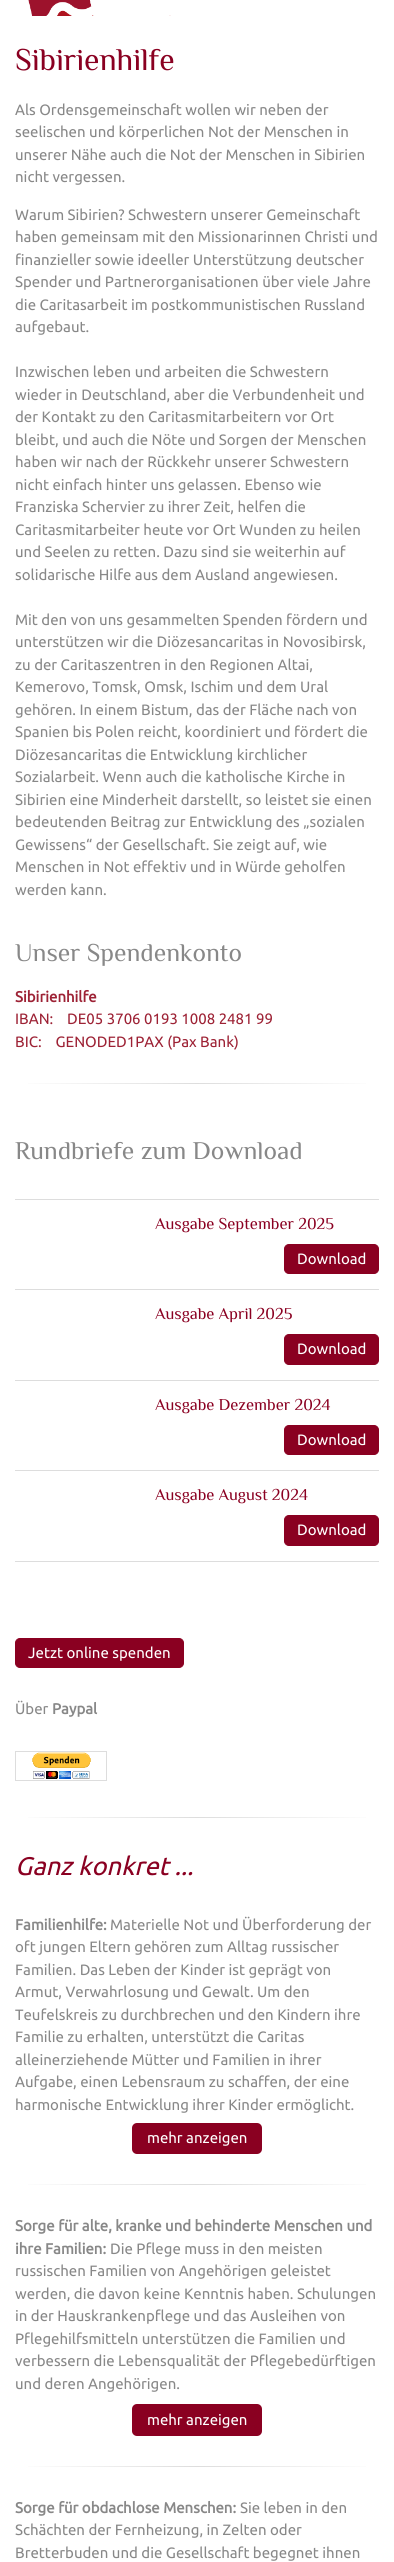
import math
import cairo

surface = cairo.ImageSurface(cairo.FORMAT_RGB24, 394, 2562)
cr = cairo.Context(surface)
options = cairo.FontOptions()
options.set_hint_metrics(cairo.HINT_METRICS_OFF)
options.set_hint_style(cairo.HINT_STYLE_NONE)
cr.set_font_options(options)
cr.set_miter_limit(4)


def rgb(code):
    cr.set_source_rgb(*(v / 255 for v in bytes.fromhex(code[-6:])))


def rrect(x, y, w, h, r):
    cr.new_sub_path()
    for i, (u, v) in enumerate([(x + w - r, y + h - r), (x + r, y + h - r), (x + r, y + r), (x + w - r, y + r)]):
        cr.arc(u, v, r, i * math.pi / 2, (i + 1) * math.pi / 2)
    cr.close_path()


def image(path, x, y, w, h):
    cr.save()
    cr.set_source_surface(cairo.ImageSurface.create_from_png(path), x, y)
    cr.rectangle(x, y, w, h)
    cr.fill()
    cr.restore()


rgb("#ffffff")
cr.paint()
image("img/1.png", 28, 0, 143, 16)
gradient = cairo.LinearGradient(15, 1084, 379, 1084)
gradient.add_color_stop_rgba(0, 1, 1, 1, 1)
gradient.add_color_stop_rgba(0.5, 0.867, 0.867, 0.867, 1)
gradient.add_color_stop_rgba(1, 1, 1, 1, 1)
cr.set_source(gradient)
cr.rectangle(28, 1083, 338, 1)
cr.fill()
rgb("#dddddd")
cr.rectangle(15, 1199, 364, 1)
cr.fill()
cr.rectangle(15, 1289, 364, 1)
cr.fill()
rgb("#8a0021")
rrect(284.5, 1244.5, 94, 29, 4.5)
cr.fill_preserve()
cr.set_line_width(1)
cr.stroke()
rgb("#dddddd")
cr.rectangle(15, 1380, 364, 1)
cr.fill()
rgb("#8a0021")
rrect(284.5, 1334.5, 94, 30, 4.5)
cr.fill_preserve()
cr.stroke()
rgb("#dddddd")
cr.rectangle(15, 1470, 364, 1)
cr.fill()
rgb("#8a0021")
rrect(284.5, 1425.5, 94, 29, 4.5)
cr.fill_preserve()
cr.stroke()
rgb("#dddddd")
cr.rectangle(15, 1561, 364, 1)
cr.fill()
rgb("#8a0021")
rrect(284.5, 1515.5, 94, 30, 4.5)
cr.fill_preserve()
cr.stroke()
rrect(15.5, 1638.5, 168, 29, 4.5)
cr.fill_preserve()
cr.stroke()
cr.rectangle(15.5, 1751.5, 91, 29)
rgb("#dddddd")
cr.stroke()
image("img/2.png", 32, 1752, 59, 27)
gradient = cairo.LinearGradient(15, 1818, 379, 1818)
gradient.add_color_stop_rgba(0, 1, 1, 1, 1)
gradient.add_color_stop_rgba(0.5, 0.867, 0.867, 0.867, 1)
gradient.add_color_stop_rgba(1, 1, 1, 1, 1)
cr.set_source(gradient)
cr.rectangle(28, 1817, 338, 1)
cr.fill()
rgb("#8a0021")
rrect(132, 2123, 130, 31, 5)
cr.fill()
gradient = cairo.LinearGradient(15, 2185, 379, 2185)
gradient.add_color_stop_rgba(0, 1, 1, 1, 1)
gradient.add_color_stop_rgba(0.5, 0.867, 0.867, 0.867, 1)
gradient.add_color_stop_rgba(1, 1, 1, 1, 1)
cr.set_source(gradient)
cr.rectangle(28, 2184, 338, 1)
cr.fill()
rgb("#8a0021")
rrect(132, 2404, 130, 32, 5)
cr.fill()
gradient = cairo.LinearGradient(15, 2467, 379, 2467)
gradient.add_color_stop_rgba(0, 1, 1, 1, 1)
gradient.add_color_stop_rgba(0.5, 0.867, 0.867, 0.867, 1)
gradient.add_color_stop_rgba(1, 1, 1, 1, 1)
cr.set_source(gradient)
cr.rectangle(28, 2466, 338, 1)
cr.fill()
cr.select_font_face("El Messiri")
cr.set_font_size(31.5)
rgb("#8a0021")
cr.move_to(15, 70)
cr.show_text("Sibirienhilfe")
cr.select_font_face("Ubuntu")
cr.set_font_size(15)
rgb("#888888")
for x, y, s in [
    (15, 115, "Als Ordensgemeinschaft wollen wir neben der"),
    (15, 137, "seelischen und körperlichen Not der Menschen in"),
    (15, 160, "unserer Nähe auch die Not der Menschen in Sibirien"),
    (15, 182, "nicht vergessen."),
    (15, 220, "Warum Sibirien? Schwestern unserer Gemeinschaft"),
    (15, 242, "haben gemeinsam mit den Missionarinnen Christi und"),
    (15, 265, "finanzieller sowie ideeller Unterstützung deutscher"),
    (15, 287, "Spender und Partnerorganisationen über viele Jahre"),
    (15, 310, "die Caritasarbeit im postkommunistischen Russland"),
    (15, 332, "aufgebaut."),
    (15, 377, "Inzwischen leben und arbeiten die Schwestern"),
    (15, 400, "wieder in Deutschland, aber die Verbundenheit und"),
    (15, 422, "der Kontakt zu den Caritasmitarbeitern vor Ort"),
    (15, 445, "bleibt, und auch die Nöte und Sorgen der Menschen"),
    (15, 467, "haben wir nach der Rückkehr unserer Schwestern"),
    (15, 490, "nicht einfach hinter uns gelassen. Ebenso wie"),
    (15, 512, "Franziska Schervier zu ihrer Zeit, helfen die"),
    (15, 535, "Caritasmitarbeiter heute vor Ort Wunden zu heilen"),
    (15, 557, "und Seelen zu retten. Dazu sind sie weiterhin auf"),
    (15, 580, "solidarische Hilfe aus dem Ausland angewiesen."),
    (15, 625, "Mit den von uns gesammelten Spenden fördern und"),
    (15, 647, "unterstützen wir die Diözesancaritas in Novosibirsk,"),
    (15, 670, "zu der Caritaszentren in den Regionen Altai,"),
    (15, 692, "Kemerovo, Tomsk, Omsk, Ischim und dem Ural"),
    (15, 715, "gehören. In einem Bistum, das der Fläche nach von"),
    (15, 737, "Spanien bis Polen reicht, koordiniert und fördert die"),
    (15, 760, "Diözesancaritas die Entwicklung kirchlicher"),
    (15, 782, "Sozialarbeit. Wenn auch die katholische Kirche in"),
    (15, 805, "Sibirien eine Minderheit darstellt, so leistet sie einen"),
    (15, 827, "bedeutenden Beitrag zur Entwicklung des „sozialen"),
    (15, 850, "Gewissens“ der Gesellschaft. Sie zeigt auf, wie"),
    (15, 872, "Menschen in Not effektiv und in Würde geholfen"),
    (15, 895, "werden kann."),
]:
    cr.move_to(x, y)
    cr.show_text(s)
cr.select_font_face("El Messiri")
cr.set_font_size(25.5)
cr.move_to(15, 961)
cr.show_text("Unser Spendenkonto")
cr.select_font_face("Ubuntu", cairo.FONT_SLANT_NORMAL, cairo.FONT_WEIGHT_BOLD)
cr.set_font_size(15)
rgb("#9d2235")
cr.move_to(15, 1002)
cr.show_text("Sibirienhilfe")
cr.select_font_face("Ubuntu")
cr.move_to(15, 1024)
cr.show_text("IBAN:    DE05 3706 0193 1008 2481 99")
cr.move_to(15, 1047)
cr.show_text("BIC:    GENODED1PAX (Pax Bank)")
cr.select_font_face("El Messiri")
cr.set_font_size(25.5)
rgb("#888888")
cr.move_to(15, 1159)
cr.show_text("Rundbriefe zum Download")
cr.set_font_size(16.5)
rgb("#8a0021")
cr.move_to(155, 1229)
cr.show_text("Ausgabe September 2025")
cr.select_font_face("Ubuntu")
cr.set_font_size(15)
rgb("#ffffff")
cr.move_to(297, 1264)
cr.show_text("Download")
cr.select_font_face("El Messiri")
cr.set_font_size(16.5)
rgb("#8a0021")
cr.move_to(155, 1319)
cr.show_text("Ausgabe April 2025")
cr.select_font_face("Ubuntu")
cr.set_font_size(15)
rgb("#ffffff")
cr.move_to(297, 1354)
cr.show_text("Download")
cr.select_font_face("El Messiri")
cr.set_font_size(16.5)
rgb("#8a0021")
cr.move_to(155, 1410)
cr.show_text("Ausgabe Dezember 2024")
cr.select_font_face("Ubuntu")
cr.set_font_size(15)
rgb("#ffffff")
cr.move_to(297, 1445)
cr.show_text("Download")
cr.select_font_face("El Messiri")
cr.set_font_size(16.5)
rgb("#8a0021")
cr.move_to(155, 1500)
cr.show_text("Ausgabe August 2024")
cr.select_font_face("Ubuntu")
cr.set_font_size(15)
rgb("#ffffff")
cr.move_to(297, 1535)
cr.show_text("Download")
cr.move_to(28, 1658)
cr.show_text("Jetzt online spenden")
rgb("#888888")
cr.move_to(15, 1714)
cr.show_text("Über")
cr.select_font_face("Ubuntu", cairo.FONT_SLANT_NORMAL, cairo.FONT_WEIGHT_BOLD)
cr.move_to(52, 1714)
cr.show_text("Paypal")
cr.select_font_face("Ubuntu", cairo.FONT_SLANT_ITALIC)
cr.set_font_size(25.5)
rgb("#8a0021")
cr.move_to(15, 1875)
cr.show_text("Ganz konkret ...")
cr.select_font_face("Ubuntu", cairo.FONT_SLANT_NORMAL, cairo.FONT_WEIGHT_BOLD)
cr.set_font_size(15)
rgb("#888888")
cr.move_to(15, 1930)
cr.show_text("Familienhilfe:")
cr.select_font_face("Ubuntu")
for x, y, s in [
    (110, 1930, "Materielle Not und Überforderung der"),
    (15, 1952, "oft jungen Eltern gehören zum Alltag russischer"),
    (15, 1975, "Familien. Das Leben der Kinder ist geprägt von"),
    (15, 1997, "Armut, Verwahrlosung und Gewalt. Um den"),
    (15, 2020, "Teufelskreis zu durchbrechen und den Kindern ihre"),
    (15, 2042, "Familie zu erhalten, unterstützt die Caritas"),
    (15, 2065, "alleinerziehende Mütter und Familien in ihrer"),
    (15, 2087, "Aufgabe, einen Lebensraum zu schaffen, der eine"),
    (15, 2110, "harmonische Entwicklung ihrer Kinder ermöglicht."),
]:
    cr.move_to(x, y)
    cr.show_text(s)
rgb("#ffffff")
cr.move_to(147, 2143)
cr.show_text("mehr anzeigen")
cr.select_font_face("Ubuntu", cairo.FONT_SLANT_NORMAL, cairo.FONT_WEIGHT_BOLD)
rgb("#888888")
cr.move_to(15, 2231)
cr.show_text("Sorge für alte, kranke und behinderte Menschen und")
cr.move_to(15, 2254)
cr.show_text("ihre Familien:")
cr.select_font_face("Ubuntu")
for x, y, s in [
    (110, 2254, "Die Pflege muss in den meisten"),
    (15, 2276, "russischen Familien von Angehörigen geleistet"),
    (15, 2299, "werden, die davon keine Kenntnis haben. Schulungen"),
    (15, 2321, "in der Hauskrankenpflege und das Ausleihen von"),
    (15, 2344, "Pflegehilfsmitteln unterstützen die Familien und"),
    (15, 2366, "verbessern die Lebensqualität der Pflegebedürftigen"),
    (15, 2389, "und deren Angehörigen."),
]:
    cr.move_to(x, y)
    cr.show_text(s)
rgb("#ffffff")
cr.move_to(147, 2425)
cr.show_text("mehr anzeigen")
cr.select_font_face("Ubuntu", cairo.FONT_SLANT_NORMAL, cairo.FONT_WEIGHT_BOLD)
rgb("#888888")
cr.move_to(15, 2513)
cr.show_text("Sorge für obdachlose Menschen:")
cr.select_font_face("Ubuntu")
for x, y, s in [
    (240, 2513, "Sie leben in den"),
    (15, 2535, "Schächten der Fernheizung, in Zelten oder"),
    (15, 2558, "Bretterbuden und die Gesellschaft begegnet ihnen"),
]:
    cr.move_to(x, y)
    cr.show_text(s)
surface.write_to_png("page.png")
